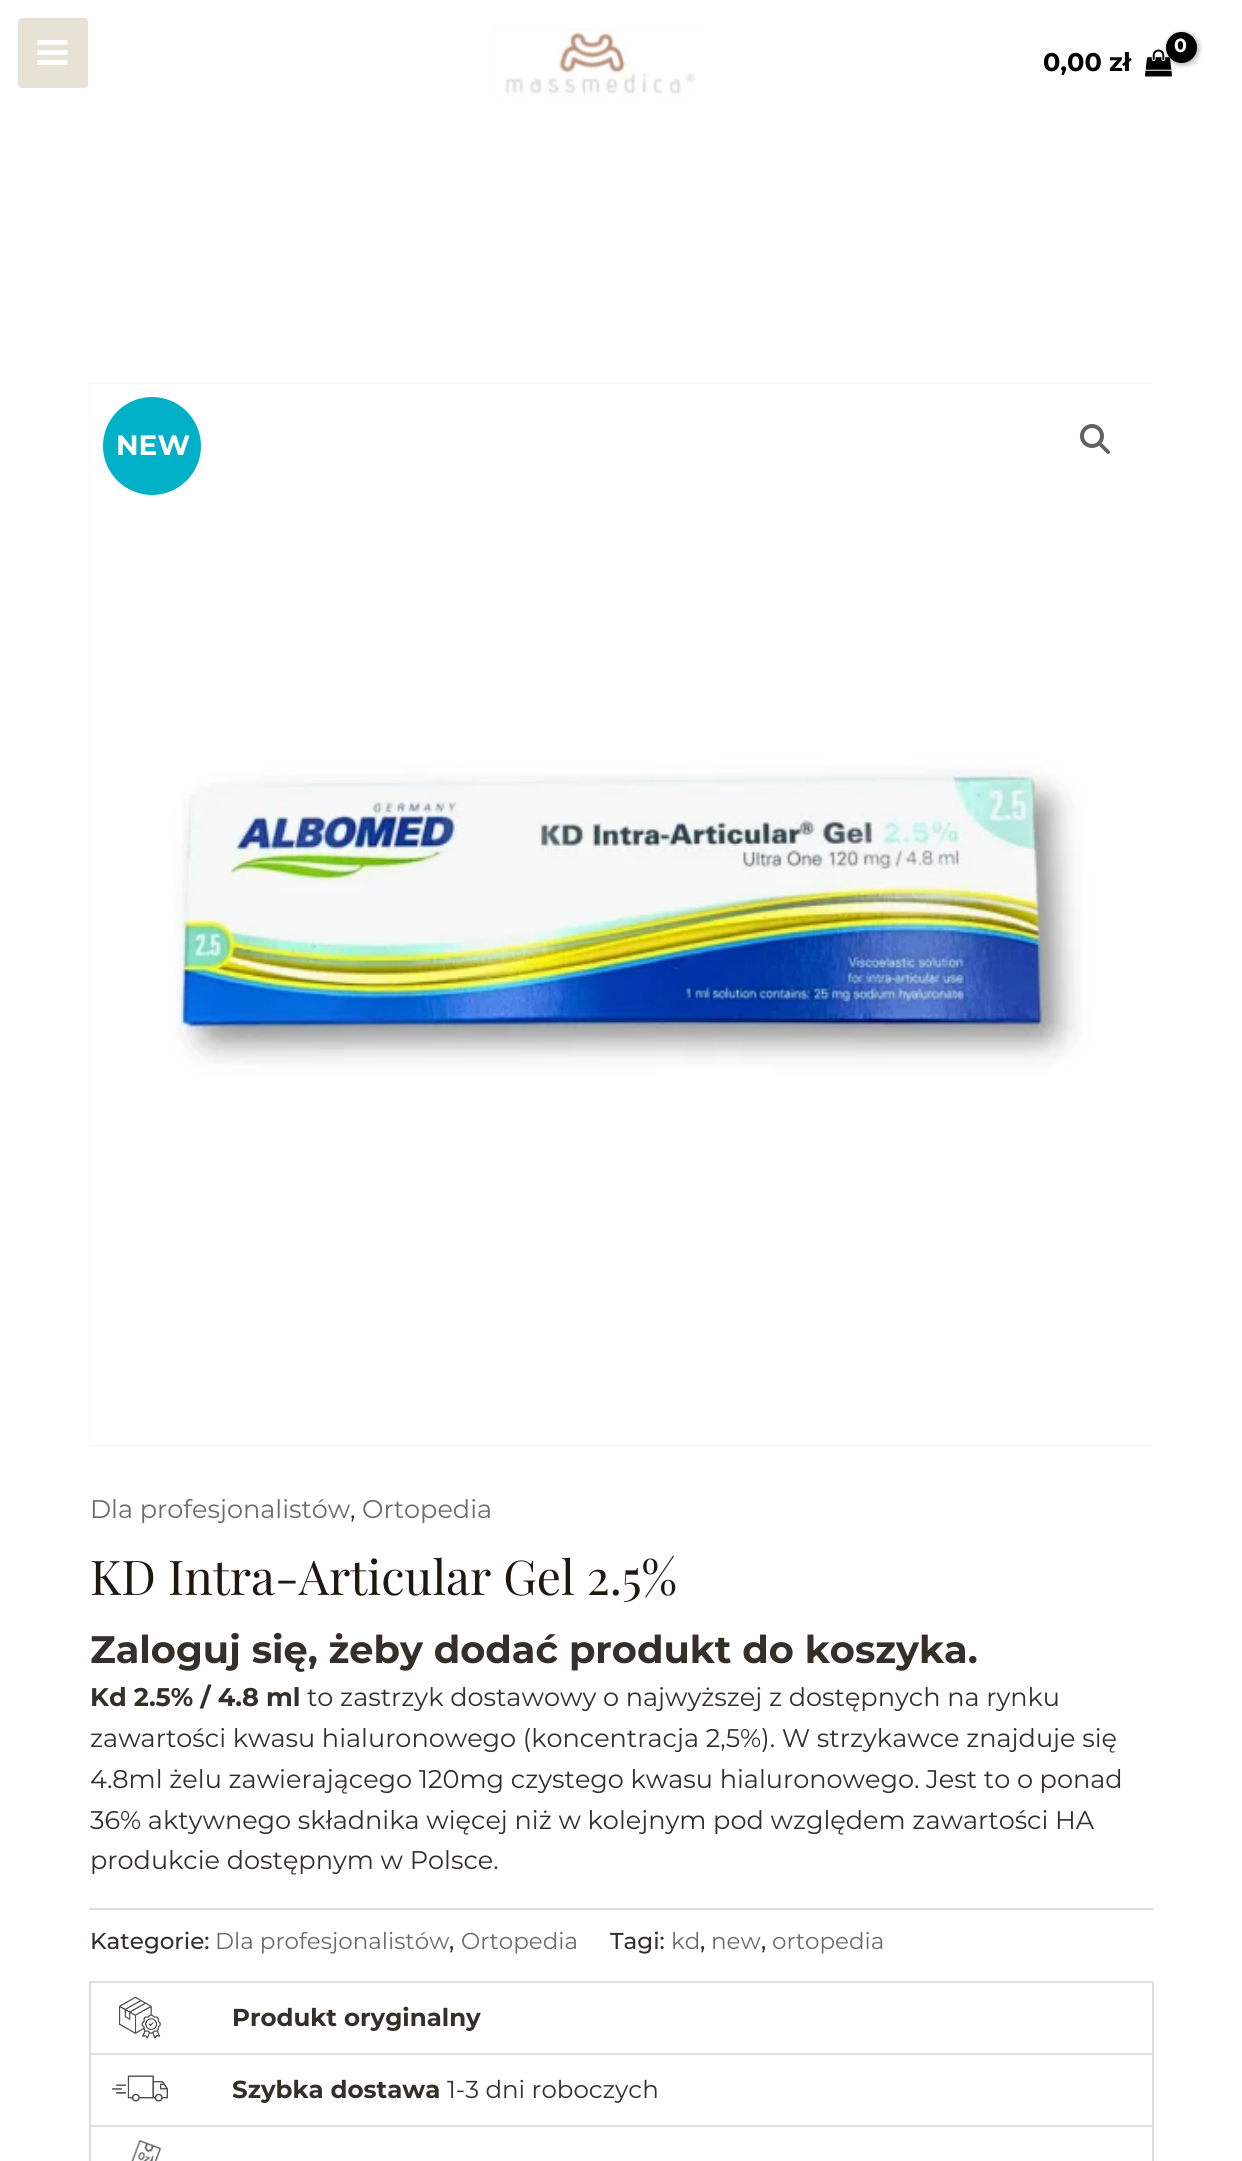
import math
import cairo

surface = cairo.ImageSurface(cairo.FORMAT_RGB24, 1242, 2161)
cr = cairo.Context(surface)
options = cairo.FontOptions()
options.set_hint_metrics(cairo.HINT_METRICS_OFF)
options.set_hint_style(cairo.HINT_STYLE_NONE)
cr.set_font_options(options)
cr.set_miter_limit(4)


def rgb(code):
    cr.set_source_rgb(*(v / 255 for v in bytes.fromhex(code[-6:])))


def tracked(x, y, s, letter, word):
    cr.move_to(x, y)
    for ch in s:
        cr.show_text(ch)
        cr.rel_move_to(letter + word * (ch == ' '), 0)


def rrect(x, y, w, h, r):
    cr.new_sub_path()
    for i, (u, v) in enumerate([(x + w - r, y + h - r), (x + r, y + h - r), (x + r, y + r), (x + w - r, y + r)]):
        cr.arc(u, v, r, i * math.pi / 2, (i + 1) * math.pi / 2)
    cr.close_path()


def soft_shadow(x, y, w, h, r, blur, alpha):
    cr.push_group_with_content(cairo.CONTENT_ALPHA)
    cr.set_operator(cairo.OPERATOR_SOURCE)
    for i in range(15, -16, -2):
        e = blur * i / 6
        if min(w, h) + 2 * e > 0:
            cr.set_source_rgba(0, 0, 0, alpha * math.erfc((i - 1) / 8.5) / 2)
            rrect(x - e, y - e, w + 2 * e, h + 2 * e, max(0, min(r + e + blur * .6, min(w, h) / 2 + e)))
            cr.fill()
    cr.mask(cr.pop_group())


def image(path, x, y, w, h):
    cr.save()
    cr.set_source_surface(cairo.ImageSurface.create_from_png(path), x, y)
    cr.rectangle(x, y, w, h)
    cr.fill()
    cr.restore()


rgb("#ffffff")
cr.paint()
rgb("#e8e1d5")
rrect(18, 18, 70, 70, 4)
cr.fill()
image("img/1.png", 37, 40, 31, 25)
rgb("#f9f6f5")
cr.rectangle(495, 28, 210, 70)
cr.fill()
image("img/2.png", 495, 28, 210, 70)
image("img/3.png", 1145, 49, 27, 28)
rgb("#000000")
soft_shadow(1167, 33, 32, 32, 16, 2.5, 0.3)
rgb("#000000")
cr.arc(1181.5, 47.5, 15.5, 0, 2 * math.pi)
cr.fill()
rgb("#eef2f3")
cr.rectangle(89, 383, 1064, 1063)
cr.fill()
image("img/4.png", 89, 383, 1064, 1063)
cr.arc(1092, 436, 10, 0, 2 * math.pi)
rgb("#62615c")
cr.set_line_width(4)
cr.stroke()
cr.new_path()
cr.move_to(1099.5, 443.5)
cr.curve_to(1101.5, 441.5, 1105, 446.5, 1106, 447.5)
cr.curve_to(1107, 448.5, 1111.5, 451.5, 1109.5, 453.5)
cr.curve_to(1107.5, 455.5, 1104.5, 451, 1103.5, 450)
cr.curve_to(1102.5, 448.5, 1097.5, 445.5, 1099.5, 443.5)
cr.close_path()
cr.fill()
rgb("#00b0c6")
cr.arc(152, 446, 49, 0, 2 * math.pi)
cr.fill()
for x, y, w, h, color in [
    (89, 1908, 1064, 2, "#dddddd"),
    (89, 1981, 1064, 2, "#dddddd"),
    (89, 1981, 2, 180, "#dddddd"),
    (91, 2053, 119, 2, "#dddddd"),
]:
    rgb(color)
    cr.rectangle(x, y, w, h)
    cr.fill()
image("img/5.png", 119, 1996, 42, 43)
for x, y, w, h, color in [
    (1152, 1983, 2, 143, "#dddddd"),
    (210, 2053, 943, 2, "#dddddd"),
    (91, 2125, 1062, 2, "#dddddd"),
]:
    rgb(color)
    cr.rectangle(x, y, w, h)
    cr.fill()
image("img/6.png", 112, 2075, 56, 27)
image("img/7.png", 131, 2140, 30, 21)
cr.rectangle(1152, 2126, 2, 35)
cr.fill()
cr.select_font_face("Montserrat", cairo.FONT_SLANT_NORMAL, cairo.FONT_WEIGHT_BOLD)
cr.set_font_size(19)
rgb("#ffffff")
tracked(1174, 52, "0", -1, 0)
cr.set_font_size(25.55)
rgb("#000000")
cr.move_to(1043, 71)
cr.show_text("0,00 zł")
cr.set_font_size(28)
rgb("#ffffff")
cr.move_to(116, 455)
cr.show_text("NEW")
cr.select_font_face("Montserrat")
cr.set_font_size(25.55)
rgb("#6c6c64")
cr.move_to(90, 1518)
cr.show_text("Dla profesjonalistów")
rgb("#343029")
cr.move_to(350, 1518)
cr.show_text(",")
rgb("#6c6c64")
cr.move_to(362, 1518)
cr.show_text("Ortopedia")
cr.select_font_face("Playfair Display")
cr.set_font_size(47.9)
rgb("#1e1810")
cr.move_to(90, 1595)
cr.show_text("KD Intra-Articular Gel 2.5%")
cr.select_font_face("Montserrat", cairo.FONT_SLANT_NORMAL, cairo.FONT_WEIGHT_BOLD)
cr.set_font_size(38.3)
rgb("#343029")
cr.move_to(90, 1663)
cr.show_text("Zaloguj się, żeby dodać produkt do koszyka.")
cr.set_font_size(25.55)
cr.move_to(90, 1706)
cr.show_text("Kd 2.5% / 4.8 ml")
cr.select_font_face("Montserrat")
for x, y, s in [
    (307, 1706, "to zastrzyk dostawowy o najwyższej z dostępnych na rynku"),
    (90, 1747, "zawartości kwasu hialuronowego (koncentracja 2,5%). W strzykawce znajduje się"),
    (90, 1788, "4.8ml żelu zawierającego 120mg czystego kwasu hialuronowego. Jest to o ponad"),
    (90, 1829, "36% aktywnego składnika więcej niż w kolejnym pod względem zawartości HA"),
    (90, 1869, "produkcie dostępnym w Polsce."),
]:
    cr.move_to(x, y)
    cr.show_text(s)
cr.select_font_face("Montserrat Medium")
cr.set_font_size(23)
cr.move_to(90, 1949)
cr.show_text("Kategorie:")
cr.select_font_face("Montserrat")
rgb("#6c6c64")
cr.move_to(215, 1949)
cr.show_text("Dla profesjonalistów")
cr.select_font_face("Montserrat Medium")
rgb("#343029")
cr.move_to(449, 1949)
cr.show_text(",")
cr.select_font_face("Montserrat")
rgb("#6c6c64")
cr.move_to(461, 1949)
cr.show_text("Ortopedia")
cr.select_font_face("Montserrat Medium")
rgb("#343029")
cr.move_to(610, 1949)
cr.show_text("Tagi:")
cr.select_font_face("Montserrat")
rgb("#6c6c64")
cr.move_to(671, 1949)
cr.show_text("kd")
cr.select_font_face("Montserrat Medium")
rgb("#343029")
cr.move_to(700, 1949)
cr.show_text(",")
cr.select_font_face("Montserrat")
rgb("#6c6c64")
cr.move_to(711, 1949)
cr.show_text("new")
cr.select_font_face("Montserrat Medium")
rgb("#343029")
cr.move_to(761, 1949)
cr.show_text(",")
cr.select_font_face("Montserrat")
rgb("#6c6c64")
cr.move_to(772, 1949)
cr.show_text("ortopedia")
cr.select_font_face("Montserrat", cairo.FONT_SLANT_NORMAL, cairo.FONT_WEIGHT_BOLD)
cr.set_font_size(24.5)
rgb("#343029")
cr.move_to(232, 2026)
cr.show_text("Produkt oryginalny")
cr.move_to(232, 2098)
cr.show_text("Szybka dostawa")
cr.select_font_face("Montserrat")
cr.move_to(447, 2098)
cr.show_text("1-3 dni roboczych")
surface.write_to_png("page.png")
